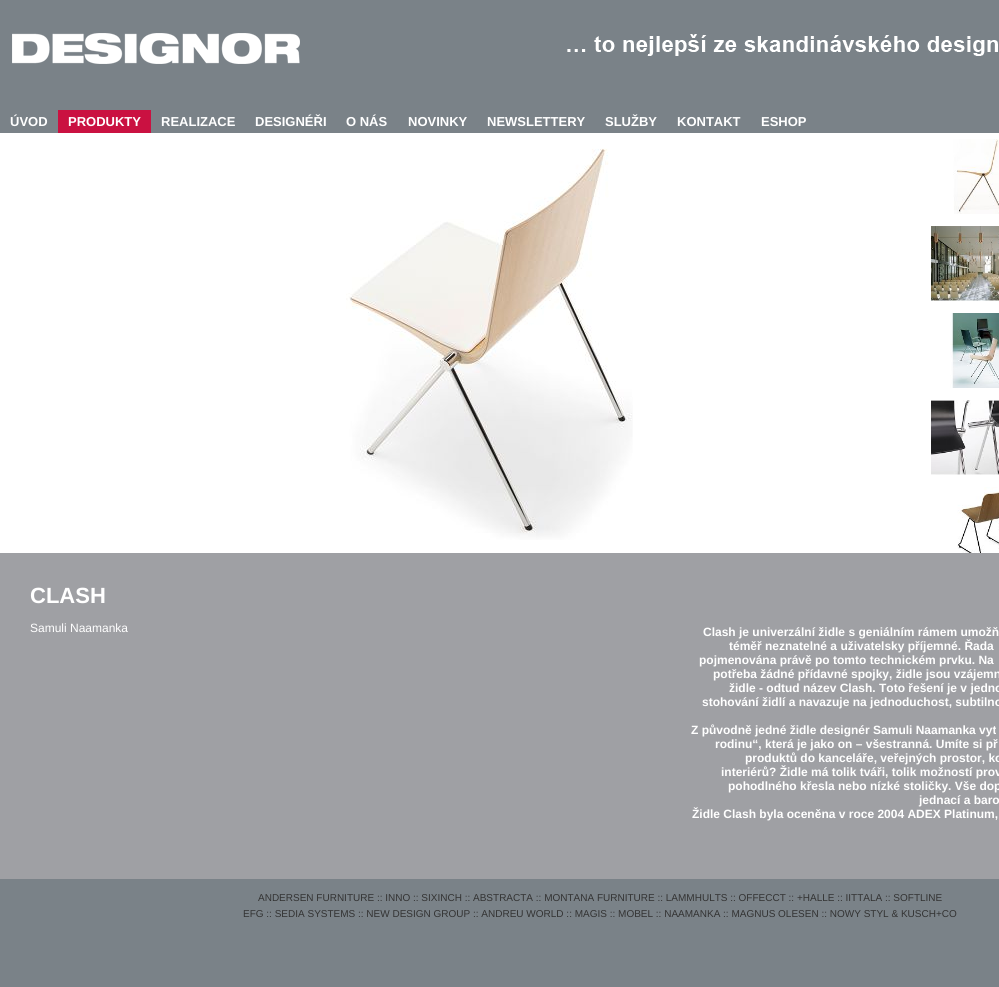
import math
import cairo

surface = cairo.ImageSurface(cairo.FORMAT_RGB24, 999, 987)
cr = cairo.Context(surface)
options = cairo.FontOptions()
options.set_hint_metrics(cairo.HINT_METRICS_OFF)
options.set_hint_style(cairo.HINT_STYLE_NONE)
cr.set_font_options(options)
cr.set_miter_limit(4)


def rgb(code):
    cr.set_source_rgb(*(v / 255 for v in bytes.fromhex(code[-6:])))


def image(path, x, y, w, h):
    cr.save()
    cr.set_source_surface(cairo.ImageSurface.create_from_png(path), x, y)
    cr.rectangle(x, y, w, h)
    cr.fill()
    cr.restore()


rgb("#7a8288")
cr.paint()
image("img/1.png", 12, 33, 986, 31)
rgb("#ca1141")
cr.rectangle(58, 110, 93, 23)
cr.fill()
rgb("#ffffff")
cr.rectangle(0, 133, 999, 420)
cr.fill()
image("img/2.png", 346, 148, 287, 392)
image("img/3.png", 953, 139, 46, 75)
image("img/4.png", 931, 226, 68, 75)
image("img/5.png", 950, 313, 49, 75)
image("img/6.png", 931, 400, 68, 75)
image("img/7.png", 957, 487, 42, 66)
rgb("#9fa0a4")
cr.rectangle(0, 553, 999, 326)
cr.fill()
cr.select_font_face("Liberation Sans", cairo.FONT_SLANT_NORMAL, cairo.FONT_WEIGHT_BOLD)
cr.set_font_size(13)
rgb("#ffffff")
for x, y, s in [
    (10, 126, "ÚVOD"),
    (68, 126, "PRODUKTY"),
    (161, 126, "REALIZACE"),
    (255, 126, "DESIGNÉŘI"),
    (346, 126, "O NÁS"),
    (408, 126, "NOVINKY"),
    (487, 126, "NEWSLETTERY"),
    (605, 126, "SLUŽBY"),
    (677, 126, "KONTAKT"),
    (761, 126, "ESHOP"),
]:
    cr.move_to(x, y)
    cr.show_text(s)
cr.set_font_size(22)
cr.move_to(30, 603)
cr.show_text("CLASH")
cr.select_font_face("Liberation Sans")
cr.set_font_size(12)
cr.move_to(30, 632)
cr.show_text("Samuli Naamanka")
cr.select_font_face("Liberation Sans", cairo.FONT_SLANT_NORMAL, cairo.FONT_WEIGHT_BOLD)
for x, y, s in [
    (703, 636, "Clash je univerzální židle s geniálním rámem umožň"),
    (729, 650, "téměř neznatelné a uživatelsky příjemné. Řada"),
    (699, 664, "pojmenována právě po tomto technickém prvku. Na"),
    (713, 678, "potřeba žádné přídavné spojky, židle jsou vzájemn"),
    (729, 692, "židle - odtud název Clash. Toto řešení je v jedno"),
    (702, 706, "stohování židlí a navazuje na jednoduchost, subtilno"),
    (691, 734, "Z původně jedné židle designér Samuli Naamanka vyt"),
    (715, 748, "rodinu“, která je jako on – všestranná. Umíte si př"),
    (745, 762, "produktů do kanceláře, veřejných prostor, ko"),
    (721, 776, "interiérů? Židle má tolik tváři, tolik možností prov"),
    (728, 790, "pohodlného křesla nebo nízké stoličky. Vše dop"),
    (919, 804, "jednací a baro"),
    (692, 818, "Židle Clash byla oceněna v roce 2004 ADEX Platinum,"),
]:
    cr.move_to(x, y)
    cr.show_text(s)
cr.select_font_face("Liberation Sans")
cr.set_font_size(10)
rgb("#333333")
cr.move_to(258, 901)
cr.show_text("ANDERSEN FURNITURE :: INNO :: SIXINCH :: ABSTRACTA :: MONTANA FURNITURE :: LAMMHULTS :: OFFECCT :: +HALLE :: IITTALA :: SOFTLINE")
cr.move_to(243, 917)
cr.show_text("EFG :: SEDIA SYSTEMS :: NEW DESIGN GROUP :: ANDREU WORLD :: MAGIS :: MOBEL :: NAAMANKA :: MAGNUS OLESEN :: NOWY STYL & KUSCH+CO")
surface.write_to_png("page.png")
